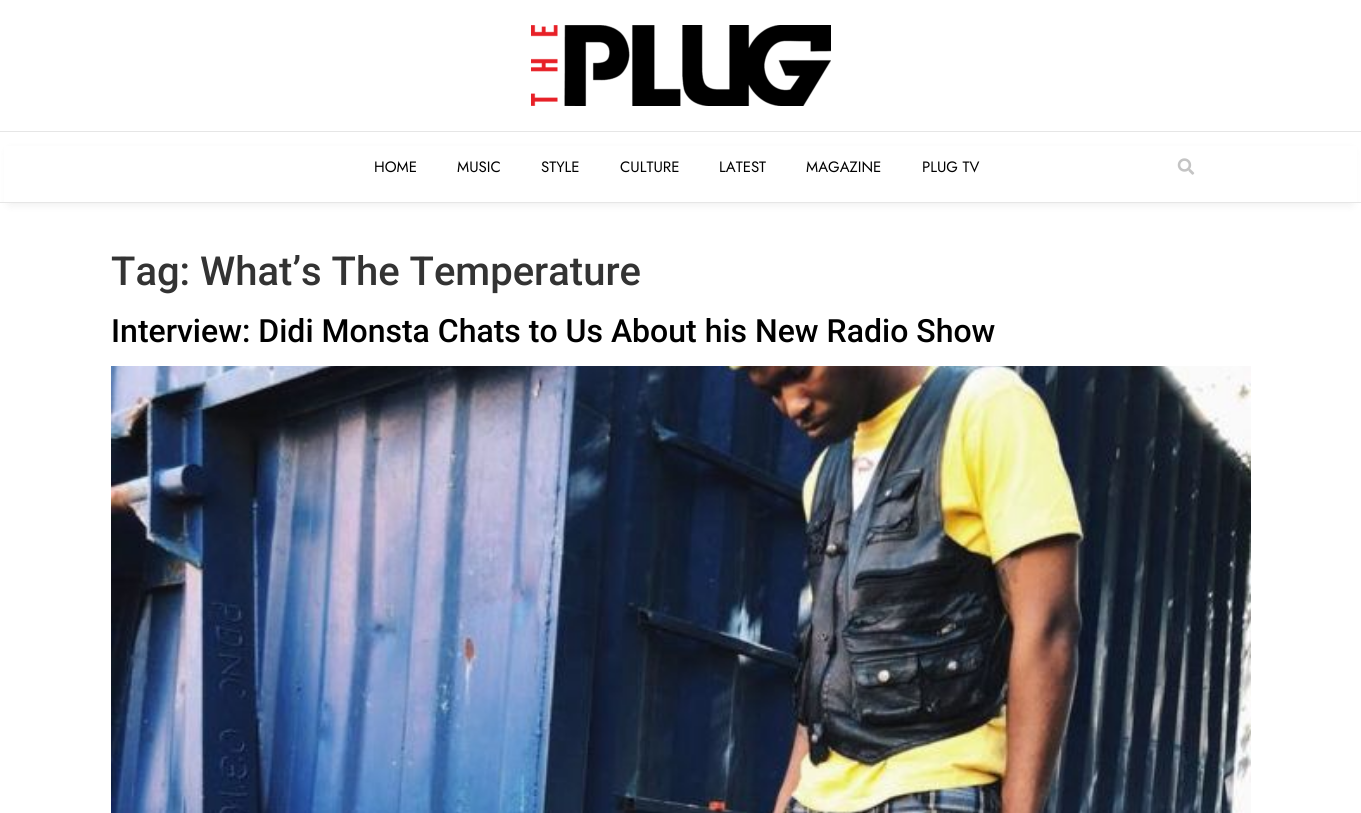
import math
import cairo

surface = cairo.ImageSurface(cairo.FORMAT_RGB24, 1361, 813)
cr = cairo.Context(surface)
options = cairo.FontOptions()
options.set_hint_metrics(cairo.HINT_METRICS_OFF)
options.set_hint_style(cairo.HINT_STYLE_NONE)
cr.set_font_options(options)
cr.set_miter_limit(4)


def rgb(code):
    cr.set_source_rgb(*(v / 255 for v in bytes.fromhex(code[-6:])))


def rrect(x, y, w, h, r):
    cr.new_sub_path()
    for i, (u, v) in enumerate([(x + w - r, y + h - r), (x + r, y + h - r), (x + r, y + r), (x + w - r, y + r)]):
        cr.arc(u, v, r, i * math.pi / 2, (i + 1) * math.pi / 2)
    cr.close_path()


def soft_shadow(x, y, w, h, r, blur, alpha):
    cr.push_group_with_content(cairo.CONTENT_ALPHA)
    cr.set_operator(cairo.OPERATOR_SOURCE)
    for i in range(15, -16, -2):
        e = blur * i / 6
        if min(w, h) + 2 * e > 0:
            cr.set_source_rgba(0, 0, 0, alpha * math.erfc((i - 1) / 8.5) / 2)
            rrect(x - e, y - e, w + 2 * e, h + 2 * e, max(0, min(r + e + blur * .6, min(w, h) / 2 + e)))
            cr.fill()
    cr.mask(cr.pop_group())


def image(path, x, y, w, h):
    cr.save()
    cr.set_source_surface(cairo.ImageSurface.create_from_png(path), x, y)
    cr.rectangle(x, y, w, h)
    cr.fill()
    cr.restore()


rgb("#ffffff")
cr.paint()
rgb("#e6e6e6")
cr.rectangle(0, 131, 1361, 1)
cr.fill()
image("img/1.png", 531, 25, 300, 81)
rgb("#131313")
soft_shadow(10, 152, 1341, 51, 0, 5, 0.1)
rgb("#ffffff")
cr.rectangle(4, 146, 1353, 56)
cr.fill()
rgb("#e6e6e6")
cr.rectangle(0, 202, 1361, 1)
cr.fill()
image("img/2.png", 1177, 158, 18, 17)
image("img/3.png", 111, 366, 1140, 447)
cr.select_font_face("Jost")
cr.set_font_size(15)
rgb("#000000")
for x, y, s in [
    (374, 172, "HOME"),
    (457, 172, "MUSIC"),
    (541, 172, "STYLE"),
    (620, 172, "CULTURE"),
    (719, 172, "LATEST"),
    (806, 172, "MAGAZINE"),
    (922, 172, "PLUG TV"),
]:
    cr.move_to(x, y)
    cr.show_text(s)
cr.select_font_face("Roboto Medium")
cr.set_font_size(40)
rgb("#333333")
cr.move_to(111, 285)
cr.show_text("Tag: What’s The Temperature")
cr.set_font_size(32)
rgb("#000000")
cr.move_to(111, 342)
cr.show_text("Interview: Didi Monsta Chats to Us About his New Radio Show")
surface.write_to_png("page.png")
